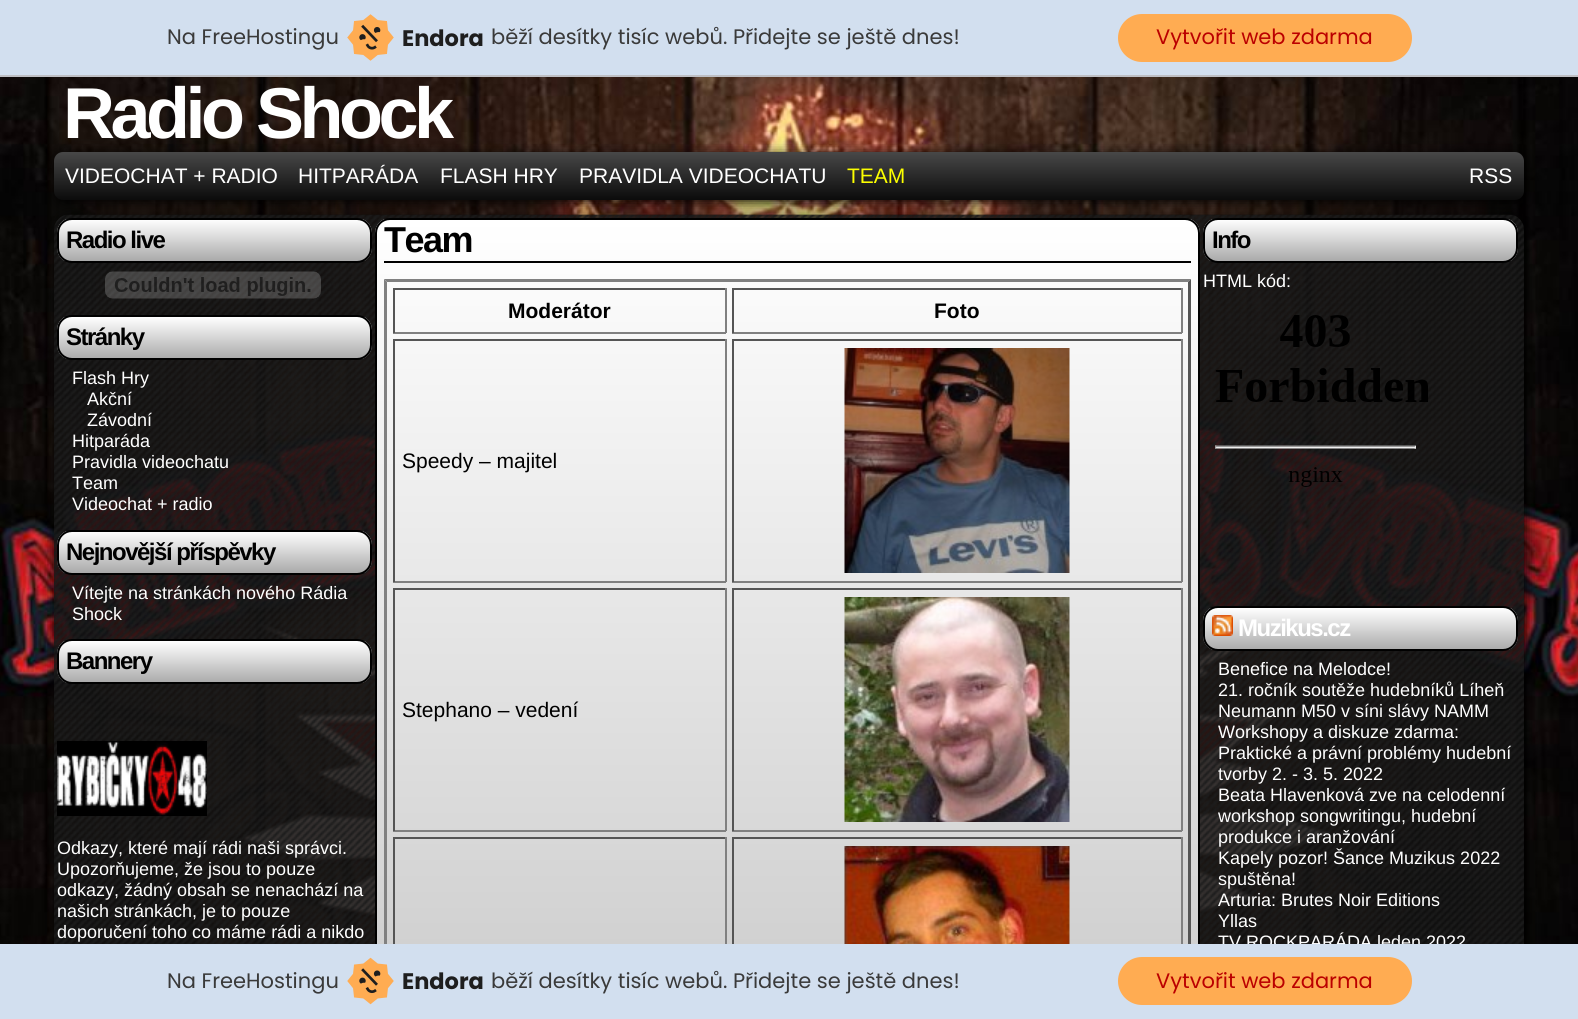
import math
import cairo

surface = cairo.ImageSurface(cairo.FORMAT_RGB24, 1578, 1019)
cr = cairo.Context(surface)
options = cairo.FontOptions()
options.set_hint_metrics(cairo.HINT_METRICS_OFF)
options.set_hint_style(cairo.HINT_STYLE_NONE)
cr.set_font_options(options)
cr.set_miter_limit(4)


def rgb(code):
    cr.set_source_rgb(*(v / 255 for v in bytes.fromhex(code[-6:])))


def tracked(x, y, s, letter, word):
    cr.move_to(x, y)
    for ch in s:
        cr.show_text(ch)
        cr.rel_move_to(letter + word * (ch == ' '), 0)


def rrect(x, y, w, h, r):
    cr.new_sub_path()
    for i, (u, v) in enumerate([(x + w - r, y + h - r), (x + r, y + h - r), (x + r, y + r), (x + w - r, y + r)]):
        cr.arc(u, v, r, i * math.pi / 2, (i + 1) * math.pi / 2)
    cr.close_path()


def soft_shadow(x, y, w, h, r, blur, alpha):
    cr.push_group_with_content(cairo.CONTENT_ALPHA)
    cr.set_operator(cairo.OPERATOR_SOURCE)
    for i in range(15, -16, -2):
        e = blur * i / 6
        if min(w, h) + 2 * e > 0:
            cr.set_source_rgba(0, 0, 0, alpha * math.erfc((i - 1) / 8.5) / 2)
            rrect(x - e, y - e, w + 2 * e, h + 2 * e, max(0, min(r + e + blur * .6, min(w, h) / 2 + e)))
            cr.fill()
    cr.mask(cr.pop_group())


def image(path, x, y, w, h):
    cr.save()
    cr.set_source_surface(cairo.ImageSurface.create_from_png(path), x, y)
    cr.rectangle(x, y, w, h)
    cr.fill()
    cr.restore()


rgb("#ffffff")
cr.paint()
image("img/1.png", 0, 77, 1578, 867)
rgb("#d2dfef")
cr.rectangle(0, 0, 1578, 75)
cr.fill()
rgb("#bebfc4")
cr.rectangle(0, 75, 1578, 2)
cr.fill()
image("img/2.png", 347, 14, 47, 47)
rgb("#ffac52")
rrect(1118, 14, 294, 48, 24)
cr.fill()
rgb("#000000")
soft_shadow(56, 155, 1470, 48, 9, 7.5, 1)
gradient = cairo.LinearGradient(54, 152, 54, 200)
gradient.add_color_stop_rgba(0, 0.282, 0.282, 0.282, 1)
gradient.add_color_stop_rgba(1, 0.043, 0.043, 0.043, 1)
cr.set_source(gradient)
rrect(54, 152, 1470, 48, 9)
cr.fill()
cr.save()
cr.set_fill_rule(cairo.FILL_RULE_EVEN_ODD)
cr.new_path()
cr.move_to(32, 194)
cr.line_to(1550, 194)
cr.line_to(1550, 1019)
cr.line_to(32, 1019)
cr.close_path()
cr.move_to(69, 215)
cr.line_to(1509, 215)
cr.curve_to(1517.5, 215, 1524, 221.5, 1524, 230)
cr.line_to(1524, 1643)
cr.curve_to(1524, 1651.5, 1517.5, 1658, 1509, 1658)
cr.line_to(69, 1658)
cr.curve_to(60.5, 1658, 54, 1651.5, 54, 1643)
cr.line_to(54, 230)
cr.curve_to(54, 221.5, 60.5, 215, 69, 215)
cr.close_path()
cr.clip()
rgb("#000000")
soft_shadow(56, 218, 1470, 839, 15, 7.5, 1)
cr.restore()
image("img/3.png", 54, 214, 1470, 730)
cr.save()
rrect(57, 218, 315, 45, 15)
cr.clip()
gradient = cairo.LinearGradient(59, 219, 59, 261)
gradient.add_color_stop_rgba(0, 1, 1, 1, 1)
gradient.add_color_stop_rgba(1, 0.667, 0.667, 0.667, 1)
cr.set_source(gradient)
cr.rectangle(57, 219, 315, 42)
cr.fill()
cr.restore()
rrect(58, 219, 313, 43, 14)
rgb("#000000")
cr.stroke()
image("img/4.png", 105, 271, 216, 28)
cr.save()
rrect(57, 315, 315, 45, 15)
cr.clip()
gradient = cairo.LinearGradient(59, 317, 59, 359)
gradient.add_color_stop_rgba(0, 1, 1, 1, 1)
gradient.add_color_stop_rgba(1, 0.667, 0.667, 0.667, 1)
cr.set_source(gradient)
cr.rectangle(57, 317, 315, 42)
cr.fill()
cr.restore()
rrect(58, 316, 313, 43, 14)
cr.stroke()
cr.save()
rrect(57, 530, 315, 45, 15)
cr.clip()
gradient = cairo.LinearGradient(59, 531, 59, 573)
gradient.add_color_stop_rgba(0, 1, 1, 1, 1)
gradient.add_color_stop_rgba(1, 0.667, 0.667, 0.667, 1)
cr.set_source(gradient)
cr.rectangle(57, 531, 315, 42)
cr.fill()
cr.restore()
rrect(58, 531, 313, 43, 14)
cr.stroke()
cr.save()
rrect(57, 639, 315, 45, 15)
cr.clip()
gradient = cairo.LinearGradient(59, 641, 59, 683)
gradient.add_color_stop_rgba(0, 1, 1, 1, 1)
gradient.add_color_stop_rgba(1, 0.667, 0.667, 0.667, 1)
cr.set_source(gradient)
cr.rectangle(57, 641, 315, 42)
cr.fill()
cr.restore()
rrect(58, 640, 313, 43, 14)
cr.stroke()
image("img/5.png", 57, 741, 150, 75)
cr.save()
rrect(375, 218, 825, 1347, 15)
cr.clip()
gradient = cairo.LinearGradient(377, 219, 377, 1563)
gradient.add_color_stop_rgba(0, 1, 1, 1, 1)
gradient.add_color_stop_rgba(1, 0.667, 0.667, 0.667, 1)
cr.set_source(gradient)
cr.rectangle(375, 219, 825, 725)
cr.fill()
cr.restore()
rrect(376, 219, 823, 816, 14)
cr.stroke()
cr.rectangle(384, 261, 807, 2)
cr.fill()
rgb("#808080")
cr.new_path()
cr.move_to(384, 279)
cr.line_to(1191, 279)
cr.line_to(1188, 282)
cr.line_to(387, 282)
cr.close_path()
cr.fill()
rgb("#555555")
cr.new_path()
cr.move_to(1191, 279)
cr.line_to(1191, 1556)
cr.line_to(1188, 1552)
cr.line_to(1188, 282)
cr.close_path()
cr.fill()
rgb("#808080")
cr.new_path()
cr.move_to(384, 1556)
cr.line_to(384, 279)
cr.line_to(387, 282)
cr.line_to(387, 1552)
cr.close_path()
cr.fill()
for x, y, w, h, color in [
    (393, 288, 333, 2, "#555555"),
    (725, 288, 2, 45, "#808080"),
    (393, 332, 333, 2, "#808080"),
    (393, 288, 2, 45, "#555555"),
    (732, 288, 450, 2, "#555555"),
    (1181, 288, 2, 45, "#808080"),
    (732, 332, 450, 2, "#808080"),
    (732, 288, 2, 45, "#555555"),
    (393, 339, 333, 2, "#555555"),
    (725, 339, 2, 243, "#808080"),
    (393, 581, 333, 2, "#808080"),
    (393, 339, 2, 243, "#555555"),
    (732, 339, 450, 2, "#555555"),
    (1181, 339, 2, 243, "#808080"),
    (732, 581, 450, 2, "#808080"),
    (732, 339, 2, 243, "#555555"),
]:
    rgb(color)
    cr.rectangle(x, y, w, h)
    cr.fill()
image("img/6.png", 844, 348, 226, 225)
for x, y, w, h, color in [
    (393, 588, 333, 2, "#555555"),
    (725, 588, 2, 243, "#808080"),
    (393, 830, 333, 2, "#808080"),
    (393, 588, 2, 243, "#555555"),
    (732, 588, 450, 2, "#555555"),
    (1181, 588, 2, 243, "#808080"),
    (732, 830, 450, 2, "#808080"),
    (732, 588, 2, 243, "#555555"),
]:
    rgb(color)
    cr.rectangle(x, y, w, h)
    cr.fill()
image("img/7.png", 844, 597, 226, 225)
for x, y, w, h, color in [
    (393, 837, 333, 2, "#555555"),
    (725, 837, 2, 107, "#808080"),
    (393, 837, 2, 107, "#555555"),
    (732, 837, 450, 2, "#555555"),
    (1181, 837, 2, 107, "#808080"),
    (732, 837, 2, 107, "#555555"),
]:
    rgb(color)
    cr.rectangle(x, y, w, h)
    cr.fill()
image("img/8.png", 844, 846, 226, 98)
cr.save()
rrect(1203, 218, 315, 45, 15)
cr.clip()
gradient = cairo.LinearGradient(1205, 219, 1205, 261)
gradient.add_color_stop_rgba(0, 1, 1, 1, 1)
gradient.add_color_stop_rgba(1, 0.667, 0.667, 0.667, 1)
cr.set_source(gradient)
cr.rectangle(1203, 219, 315, 42)
cr.fill()
cr.restore()
rrect(1204, 219, 313, 43, 14)
rgb("#000000")
cr.stroke()
image("img/9.png", 1215, 315, 213, 172)
cr.save()
rrect(1203, 606, 315, 45, 15)
cr.clip()
gradient = cairo.LinearGradient(1205, 608, 1205, 650)
gradient.add_color_stop_rgba(0, 1, 1, 1, 1)
gradient.add_color_stop_rgba(1, 0.667, 0.667, 0.667, 1)
cr.set_source(gradient)
cr.rectangle(1203, 608, 315, 42)
cr.fill()
cr.restore()
rrect(1204, 607, 313, 43, 14)
cr.stroke()
image("img/10.png", 1212, 615, 21, 21)
cr.select_font_face("Poppins")
cr.set_font_size(21)
rgb("#3a3a3a")
cr.move_to(167, 44)
cr.show_text("Na FreeHostingu")
cr.select_font_face("Poppins", cairo.FONT_SLANT_NORMAL, cairo.FONT_WEIGHT_BOLD)
cr.set_font_size(22.5)
rgb("#1e1e1e")
cr.move_to(402, 46)
cr.show_text("Endora")
cr.select_font_face("Poppins")
cr.set_font_size(21)
rgb("#3a3a3a")
cr.move_to(491, 44)
cr.show_text("běží desítky tisíc webů. Přidejte se ještě dnes!")
rgb("#bb0000")
cr.move_to(1156, 44)
cr.show_text("Vytvořit web zdarma")
cr.select_font_face("Liberation Sans", cairo.FONT_SLANT_NORMAL, cairo.FONT_WEIGHT_BOLD)
cr.set_font_size(72)
rgb("#ffffff")
tracked(63, 138, "Radio Shock", -4.5, 0)
cr.select_font_face("Liberation Sans")
cr.set_font_size(21)
for x, y, s in [
    (65, 183, "VIDEOCHAT + RADIO"),
    (298, 183, "HITPARÁDA"),
    (440, 183, "FLASH HRY"),
    (579, 183, "PRAVIDLA VIDEOCHATU"),
]:
    cr.move_to(x, y)
    cr.show_text(s)
rgb("#fcff00")
cr.move_to(847, 183)
cr.show_text("TEAM")
rgb("#ffffff")
cr.move_to(1469, 183)
cr.show_text("RSS")
cr.select_font_face("Liberation Sans", cairo.FONT_SLANT_NORMAL, cairo.FONT_WEIGHT_BOLD)
cr.set_font_size(24)
rgb("#000000")
tracked(66, 248, "Radio live", -1.5, 0)
tracked(66, 345, "Stránky", -1.5, 0)
cr.select_font_face("Liberation Sans")
cr.set_font_size(18)
rgb("#ffffff")
for x, y, s in [
    (72, 384, "Flash Hry"),
    (87, 405, "Akční"),
    (87, 426, "Závodní"),
    (72, 447, "Hitparáda"),
    (72, 468, "Pravidla videochatu"),
    (72, 489, "Team"),
    (72, 510, "Videochat + radio"),
]:
    cr.move_to(x, y)
    cr.show_text(s)
cr.select_font_face("Liberation Sans", cairo.FONT_SLANT_NORMAL, cairo.FONT_WEIGHT_BOLD)
cr.set_font_size(24)
rgb("#000000")
tracked(66, 560, "Nejnovější příspěvky", -1.5, 0)
cr.select_font_face("Liberation Sans")
cr.set_font_size(18)
rgb("#ffffff")
cr.move_to(72, 599)
cr.show_text("Vítejte na stránkách nového Rádia")
cr.move_to(72, 620)
cr.show_text("Shock")
cr.select_font_face("Liberation Sans", cairo.FONT_SLANT_NORMAL, cairo.FONT_WEIGHT_BOLD)
cr.set_font_size(24)
rgb("#000000")
tracked(66, 669, "Bannery", -1.5, 0)
cr.select_font_face("Liberation Sans")
cr.set_font_size(18)
rgb("#ffffff")
for x, y, s in [
    (57, 854, "Odkazy, které mají rádi naši správci."),
    (57, 875, "Upozorňujeme, že jsou to pouze"),
    (57, 896, "odkazy, žádný obsah se nenachází na"),
    (57, 917, "našich stránkách, je to pouze"),
    (57, 938, "doporučení toho co máme rádi a nikdo"),
]:
    cr.move_to(x, y)
    cr.show_text(s)
cr.select_font_face("Liberation Sans", cairo.FONT_SLANT_NORMAL, cairo.FONT_WEIGHT_BOLD)
cr.set_font_size(36)
rgb("#000000")
tracked(384, 252, "Team", -1.5, 0)
cr.set_font_size(21)
cr.move_to(508, 318)
cr.show_text("Moderátor")
cr.move_to(934, 318)
cr.show_text("Foto")
cr.select_font_face("Liberation Sans")
cr.move_to(402, 468)
cr.show_text("Speedy – majitel")
cr.move_to(402, 717)
cr.show_text("Stephano – vedení")
cr.select_font_face("Liberation Sans", cairo.FONT_SLANT_NORMAL, cairo.FONT_WEIGHT_BOLD)
cr.set_font_size(24)
tracked(1212, 248, "Info", -1.5, 0)
cr.select_font_face("Liberation Sans")
cr.set_font_size(18)
rgb("#ffffff")
cr.move_to(1203, 287)
cr.show_text("HTML kód:")
cr.select_font_face("Liberation Sans", cairo.FONT_SLANT_NORMAL, cairo.FONT_WEIGHT_BOLD)
cr.set_font_size(24)
tracked(1238, 636, "Muzikus.cz", -1.5, 0)
cr.select_font_face("Liberation Sans")
cr.set_font_size(18)
for x, y, s in [
    (1218, 675, "Benefice na Melodce!"),
    (1218, 696, "21. ročník soutěže hudebníků Líheň"),
    (1218, 717, "Neumann M50 v síni slávy NAMM"),
    (1218, 738, "Workshopy a diskuze zdarma:"),
    (1218, 759, "Praktické a právní problémy hudební"),
    (1218, 780, "tvorby 2. - 3. 5. 2022"),
    (1218, 801, "Beata Hlavenková zve na celodenní"),
    (1218, 822, "workshop songwritingu, hudební"),
    (1218, 843, "produkce i aranžování"),
    (1218, 864, "Kapely pozor! Šance Muzikus 2022"),
    (1218, 885, "spuštěna!"),
    (1218, 906, "Arturia: Brutes Noir Editions"),
    (1218, 927, "Yllas"),
    (1218, 948, "TV ROCKPARÁDA leden 2022"),
]:
    cr.move_to(x, y)
    cr.show_text(s)
rgb("#d2dfef")
cr.rectangle(0, 944, 1578, 75)
cr.fill()
cr.select_font_face("Poppins")
cr.set_font_size(21)
rgb("#3a3a3a")
cr.move_to(167, 988)
cr.show_text("Na FreeHostingu")
image("img/11.png", 347, 957, 47, 48)
cr.select_font_face("Poppins", cairo.FONT_SLANT_NORMAL, cairo.FONT_WEIGHT_BOLD)
cr.set_font_size(22.5)
rgb("#1e1e1e")
cr.move_to(402, 989)
cr.show_text("Endora")
cr.select_font_face("Poppins")
cr.set_font_size(21)
rgb("#3a3a3a")
cr.move_to(491, 988)
cr.show_text("běží desítky tisíc webů. Přidejte se ještě dnes!")
rgb("#ffac52")
rrect(1118, 957, 294, 48, 24)
cr.fill()
rgb("#bb0000")
cr.move_to(1156, 988)
cr.show_text("Vytvořit web zdarma")
surface.write_to_png("page.png")
